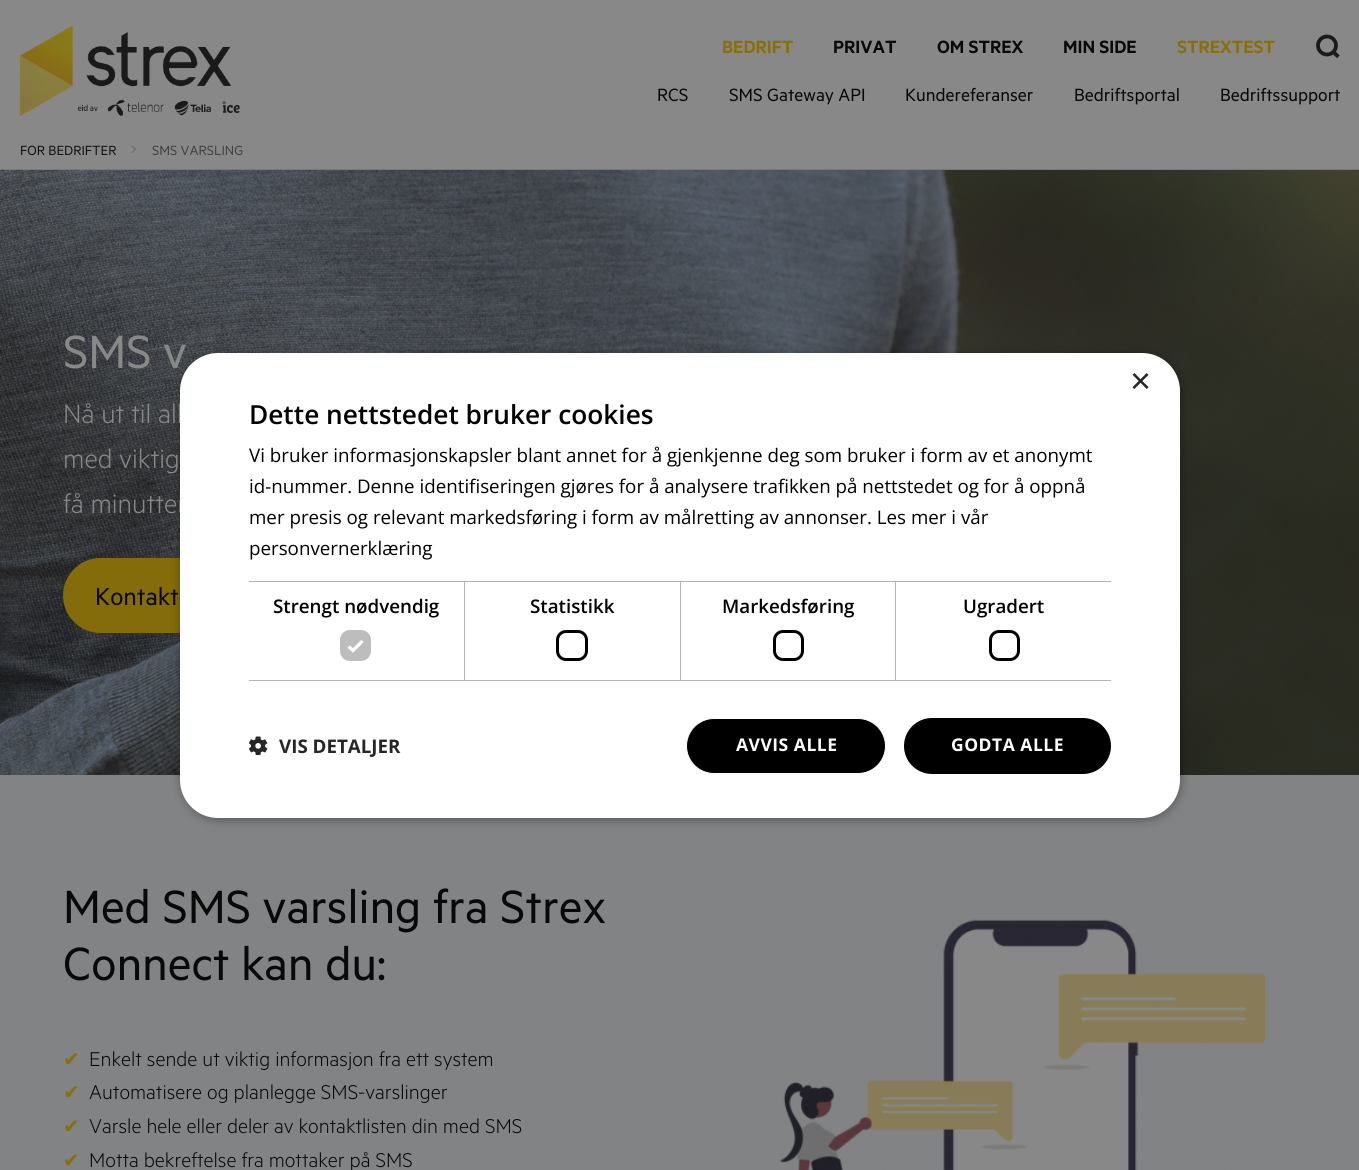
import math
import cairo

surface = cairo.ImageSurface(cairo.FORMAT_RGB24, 1359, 1170)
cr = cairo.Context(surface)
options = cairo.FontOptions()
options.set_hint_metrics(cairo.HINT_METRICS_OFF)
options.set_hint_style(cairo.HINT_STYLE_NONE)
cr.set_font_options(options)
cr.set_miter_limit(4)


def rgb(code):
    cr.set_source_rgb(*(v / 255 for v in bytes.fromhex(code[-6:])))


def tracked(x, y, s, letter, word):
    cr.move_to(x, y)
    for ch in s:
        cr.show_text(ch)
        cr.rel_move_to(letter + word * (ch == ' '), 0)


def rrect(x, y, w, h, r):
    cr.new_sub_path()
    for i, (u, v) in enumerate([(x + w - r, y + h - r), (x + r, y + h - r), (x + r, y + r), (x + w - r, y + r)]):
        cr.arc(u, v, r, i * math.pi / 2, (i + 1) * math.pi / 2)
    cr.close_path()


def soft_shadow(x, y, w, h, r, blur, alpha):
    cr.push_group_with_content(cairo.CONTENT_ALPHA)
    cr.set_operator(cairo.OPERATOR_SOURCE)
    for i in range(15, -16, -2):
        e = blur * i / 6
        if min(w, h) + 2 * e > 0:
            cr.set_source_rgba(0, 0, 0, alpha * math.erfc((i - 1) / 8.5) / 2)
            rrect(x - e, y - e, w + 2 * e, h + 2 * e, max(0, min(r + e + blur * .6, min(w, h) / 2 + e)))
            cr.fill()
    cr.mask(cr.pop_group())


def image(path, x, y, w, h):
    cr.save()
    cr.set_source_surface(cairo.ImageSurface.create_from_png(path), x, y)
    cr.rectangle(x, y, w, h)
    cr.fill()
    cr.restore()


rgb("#888888")
cr.paint()
image("img/1.png", 20, 25, 220, 92)
cr.arc(1327, 45.5, 9, 0, 2 * math.pi)
rgb("#1a1a1a")
cr.set_line_width(3.8)
cr.stroke()
cr.new_path()
cr.move_to(1334, 52.5)
cr.line_to(1337, 55.5)
cr.set_line_cap(cairo.LINE_CAP_SQUARE)
cr.set_line_join(cairo.LINE_JOIN_ROUND)
cr.stroke()
rgb("#797979")
cr.rectangle(0, 169, 1359, 1)
cr.fill()
cr.new_path()
cr.move_to(132, 152.5)
cr.line_to(135.5, 149)
cr.line_to(132, 146)
rgb("#5e5e5e")
cr.set_line_width(0.8)
cr.set_line_cap(cairo.LINE_CAP_ROUND)
cr.stroke()
image("img/2.png", 0, 170, 1359, 605)
rgb("#836c09")
rrect(63, 558, 291, 75, 37.5)
cr.fill()
rgb("#818384")
cr.rectangle(0, 775, 1359, 395)
cr.fill()
image("img/3.png", 780, 919, 486, 251)
rgb("#000000")
soft_shadow(181, 355, 1000, 465, 38, 5, 0.35)
cr.select_font_face("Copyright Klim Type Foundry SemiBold")
cr.set_font_size(20)
rgb("#886f09")
cr.move_to(722, 53)
cr.show_text("BEDRIFT")
rgb("#090909")
for x, y, s in [
    (833, 53, "PRIVAT"),
    (937, 53, "OM STREX"),
    (1063, 53, "MIN SIDE"),
]:
    cr.move_to(x, y)
    cr.show_text(s)
rgb("#886f09")
cr.move_to(1177, 53)
cr.show_text("STREXTEST")
cr.select_font_face("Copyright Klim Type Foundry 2")
rgb("#090909")
for x, y, s in [
    (657, 101, "RCS"),
    (729, 101, "SMS Gateway API"),
    (905, 101, "Kundereferanser"),
    (1074, 101, "Bedriftsportal"),
    (1220, 101, "Bedriftssupport"),
]:
    cr.move_to(x, y)
    cr.show_text(s)
cr.select_font_face("Copyright Klim Type Foundry")
cr.set_font_size(15)
rgb("#141414")
cr.move_to(20, 155)
cr.show_text("FOR BEDRIFTER")
rgb("#424242")
cr.move_to(152, 155)
cr.show_text("SMS VARSLING")
cr.select_font_face("Copyright Klim Type Foundry 2")
cr.set_font_size(52.5)
rgb("#888888")
cr.move_to(63, 368)
cr.show_text("SMS v")
cr.select_font_face("Copyright Klim Type Foundry Light")
cr.set_font_size(30)
for x, y, s in [
    (63, 423, "Nå ut til all"),
    (63, 468, "med viktig"),
    (63, 513, "få minutter"),
]:
    cr.move_to(x, y)
    cr.show_text(s)
cr.select_font_face("Copyright Klim Type Foundry 2")
cr.set_font_size(27.5)
rgb("#090909")
cr.move_to(95, 605)
cr.show_text("Kontakt")
cr.set_font_size(52.5)
cr.move_to(63, 923)
cr.show_text("Med SMS varsling fra Strex")
cr.move_to(63, 980)
cr.show_text("Connect kan du:")
cr.select_font_face("DejaVu Sans")
cr.set_font_size(20)
rgb("#886f09")
cr.move_to(63, 1066)
cr.show_text("✔")
cr.select_font_face("Copyright Klim Type Foundry Light")
cr.set_font_size(22.5)
rgb("#090909")
cr.move_to(89, 1066)
cr.show_text("Enkelt sende ut viktig informasjon fra ett system")
cr.select_font_face("DejaVu Sans")
cr.set_font_size(20)
rgb("#886f09")
cr.move_to(63, 1099)
cr.show_text("✔")
cr.select_font_face("Copyright Klim Type Foundry Light")
cr.set_font_size(22.5)
rgb("#090909")
cr.move_to(89, 1099)
cr.show_text("Automatisere og planlegge SMS-varslinger")
cr.select_font_face("DejaVu Sans")
cr.set_font_size(20)
rgb("#886f09")
cr.move_to(63, 1133)
cr.show_text("✔")
cr.select_font_face("Copyright Klim Type Foundry Light")
cr.set_font_size(22.5)
rgb("#090909")
cr.move_to(89, 1133)
cr.show_text("Varsle hele eller deler av kontaktlisten din med SMS")
cr.select_font_face("DejaVu Sans")
cr.set_font_size(20)
rgb("#886f09")
cr.move_to(63, 1167)
cr.show_text("✔")
cr.select_font_face("Copyright Klim Type Foundry Light")
cr.set_font_size(22.5)
rgb("#090909")
cr.move_to(89, 1167)
cr.show_text("Motta bekreftelse fra mottaker på SMS")
rgb("#ffffff")
rrect(180, 353, 1000, 465, 38)
cr.fill()
cr.select_font_face("Liberation Sans")
cr.set_font_size(36)
rgb("#262626")
cr.move_to(1130, 393)
cr.show_text("×")
cr.select_font_face("Open Sans SemiBold")
cr.set_font_size(26.25)
rgb("#000000")
cr.move_to(249, 424)
cr.show_text("Dette nettstedet bruker cookies")
cr.select_font_face("Open Sans")
cr.set_font_size(18.75)
for x, y, s in [
    (249, 462, "Vi bruker informasjonskapsler blant annet for å gjenkjenne deg som bruker i form av et anonymt"),
    (249, 493, "id-nummer. Denne identifiseringen gjøres for å analysere trafikken på nettstedet og for å oppnå"),
    (249, 524, "mer presis og relevant markedsføring i form av målretting av annonser. Les mer i vår"),
    (249, 555, "personvernerklæring"),
]:
    cr.move_to(x, y)
    cr.show_text(s)
for x, y, w, h, color in [
    (249, 581, 862, 1, "#b3b3b3"),
    (464, 581, 1, 100, "#b3b3b3"),
    (249, 680, 216, 1, "#b3b3b3"),
]:
    rgb(color)
    cr.rectangle(x, y, w, h)
    cr.fill()
cr.select_font_face("Open Sans SemiBold")
rgb("#000000")
cr.move_to(273, 613)
cr.show_text("Strengt nødvendig")
rgb("#bdbdbd")
rrect(340, 630, 31, 31, 10)
cr.fill()
cr.new_path()
cr.move_to(348.5, 646.5)
cr.line_to(353, 650.5)
cr.line_to(362.5, 641)
rgb("#ffffff")
cr.set_line_width(3.3)
cr.set_line_cap(cairo.LINE_CAP_BUTT)
cr.set_line_join(cairo.LINE_JOIN_MITER)
cr.stroke()
rgb("#b3b3b3")
cr.rectangle(680, 581, 1, 100)
cr.fill()
cr.rectangle(465, 680, 216, 1)
cr.fill()
rgb("#000000")
cr.move_to(530, 613)
cr.show_text("Statistikk")
rrect(557.5, 631.5, 29, 28, 8.5)
cr.set_line_width(3)
cr.stroke()
rgb("#b3b3b3")
cr.rectangle(895, 581, 1, 100)
cr.fill()
cr.rectangle(681, 680, 430, 1)
cr.fill()
rgb("#000000")
cr.move_to(722, 613)
cr.show_text("Markedsføring")
rrect(774.5, 631.5, 28, 28, 8.5)
cr.stroke()
cr.move_to(963, 613)
cr.show_text("Ugradert")
rrect(990.5, 631.5, 28, 28, 8.5)
cr.stroke()
image("img/4.png", 249, 736, 19, 19)
cr.select_font_face("Open Sans", cairo.FONT_SLANT_NORMAL, cairo.FONT_WEIGHT_BOLD)
rgb("#262626")
cr.move_to(279, 753)
cr.show_text("VIS DETALJER")
rgb("#000000")
rrect(686.5, 718.5, 199, 55, 27.5)
cr.fill_preserve()
rgb("#ffffff")
cr.set_line_width(1)
cr.stroke()
cr.set_font_size(17.5)
tracked(736, 751, "AVVIS ALLE", 0.5, 0)
rgb("#000000")
rrect(904, 718, 207, 56, 28)
cr.fill()
rgb("#ffffff")
tracked(951, 751, "GODTA ALLE", 0.5, 0)
surface.write_to_png("page.png")
